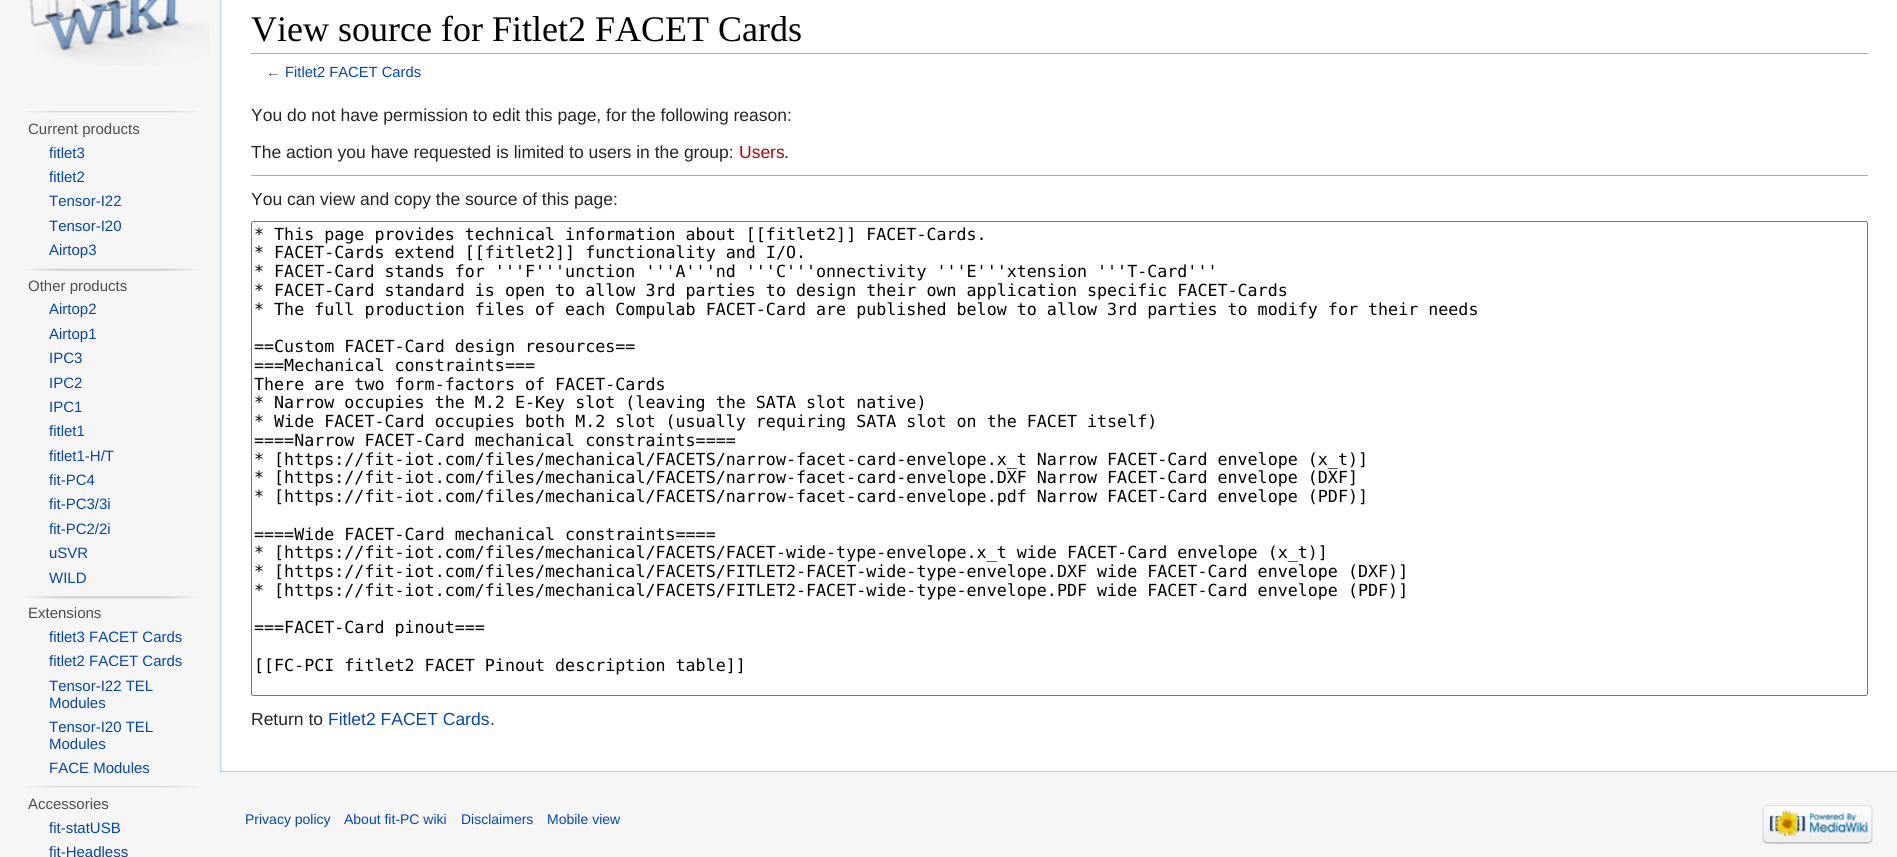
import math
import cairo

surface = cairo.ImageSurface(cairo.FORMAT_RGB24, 1897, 857)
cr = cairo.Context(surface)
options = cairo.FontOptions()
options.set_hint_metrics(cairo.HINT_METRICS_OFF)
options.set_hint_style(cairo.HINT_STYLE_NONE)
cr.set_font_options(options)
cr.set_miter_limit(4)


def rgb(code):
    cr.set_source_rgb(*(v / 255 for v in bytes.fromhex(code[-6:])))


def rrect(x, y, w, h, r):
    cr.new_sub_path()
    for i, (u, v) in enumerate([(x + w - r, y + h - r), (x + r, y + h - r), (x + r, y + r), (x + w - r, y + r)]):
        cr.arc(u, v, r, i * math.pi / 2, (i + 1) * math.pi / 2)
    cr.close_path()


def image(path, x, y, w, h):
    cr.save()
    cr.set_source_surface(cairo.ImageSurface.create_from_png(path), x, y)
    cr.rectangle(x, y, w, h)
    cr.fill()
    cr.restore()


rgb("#f6f6f6")
cr.paint()
image("img/1.png", 29, 0, 181, 65)
image("img/2.png", 27, 111, 170, 2)
image("img/3.png", 27, 268, 170, 3)
image("img/4.png", 27, 596, 170, 3)
image("img/2.png", 27, 786, 170, 2)
for x, y, w, h, color in [
    (221, 0, 1676, 771, "#ffffff"),
    (220, 771, 1677, 1, "#a7d7f9"),
    (220, 0, 1, 773, "#a7d7f9"),
    (251, 53, 1617, 1, "#aaaaaa"),
    (251, 175, 1617, 1, "#aaaaaa"),
]:
    rgb(color)
    cr.rectangle(x, y, w, h)
    cr.fill()
rrect(251.5, 221.5, 1616, 474, 2)
rgb("#767676")
cr.set_line_width(1)
cr.stroke()
image("img/5.png", 1762, 804, 111, 40)
cr.select_font_face("Liberation Sans")
cr.set_font_size(15)
rgb("#4d4d4d")
cr.move_to(28, 134)
cr.show_text("Current products")
rgb("#0645ad")
for x, y, s in [
    (49, 158, "fitlet3"),
    (49, 182, "fitlet2"),
    (49, 206, "Tensor-I22"),
    (49, 231, "Tensor-I20"),
    (49, 255, "Airtop3"),
]:
    cr.move_to(x, y)
    cr.show_text(s)
rgb("#4d4d4d")
cr.move_to(28, 291)
cr.show_text("Other products")
rgb("#0645ad")
for x, y, s in [
    (49, 314, "Airtop2"),
    (49, 339, "Airtop1"),
    (49, 363, "IPC3"),
    (49, 388, "IPC2"),
    (49, 412, "IPC1"),
    (49, 436, "fitlet1"),
    (49, 461, "fitlet1-H/T"),
    (49, 485, "fit-PC4"),
    (49, 509, "fit-PC3/3i"),
    (49, 534, "fit-PC2/2i"),
    (49, 558, "uSVR"),
    (49, 583, "WILD"),
]:
    cr.move_to(x, y)
    cr.show_text(s)
rgb("#4d4d4d")
cr.move_to(28, 618)
cr.show_text("Extensions")
rgb("#0645ad")
for x, y, s in [
    (49, 642, "fitlet3 FACET Cards"),
    (49, 666, "fitlet2 FACET Cards"),
    (49, 691, "Tensor-I22 TEL"),
    (49, 708, "Modules"),
    (49, 732, "Tensor-I20 TEL"),
    (49, 749, "Modules"),
    (49, 773, "FACE Modules"),
]:
    cr.move_to(x, y)
    cr.show_text(s)
rgb("#4d4d4d")
cr.move_to(28, 809)
cr.show_text("Accessories")
rgb("#0645ad")
cr.move_to(49, 833)
cr.show_text("fit-statUSB")
cr.move_to(49, 857)
cr.show_text("fit-Headless")
cr.select_font_face("Liberation Serif")
cr.set_font_size(36)
rgb("#000000")
cr.move_to(251, 41)
cr.show_text("View source for Fitlet2 FACET Cards")
cr.select_font_face("Liberation Sans")
cr.set_font_size(14.75)
rgb("#545454")
cr.move_to(266, 77)
cr.show_text("←")
rgb("#0645ad")
cr.move_to(285, 77)
cr.show_text("Fitlet2 FACET Cards")
cr.set_font_size(17.5)
rgb("#252525")
cr.move_to(251, 121)
cr.show_text("You do not have permission to edit this page, for the following reason:")
cr.move_to(251, 158)
cr.show_text("The action you have requested is limited to users in the group:")
rgb("#ba0000")
cr.move_to(739, 158)
cr.show_text("Users")
rgb("#252525")
cr.move_to(784, 158)
cr.show_text(".")
cr.move_to(251, 205)
cr.show_text("You can view and copy the source of this page:")
cr.select_font_face("DejaVu Sans Mono")
cr.set_font_size(16.67)
rgb("#000000")
for x, y, s in [
    (254, 240, "* This page provides technical information about [[fitlet2]] FACET-Cards."),
    (254, 258, "* FACET-Cards extend [[fitlet2]] functionality and I/O."),
    (254, 277, "* FACET-Card stands for '''F'''unction '''A'''nd '''C'''onnectivity '''E'''xtension '''T-Card'''"),
    (254, 296, "* FACET-Card standard is open to allow 3rd parties to design their own application specific FACET-Cards"),
    (254, 315, "* The full production files of each Compulab FACET-Card are published below to allow 3rd parties to modify for their needs"),
    (254, 352, "==Custom FACET-Card design resources=="),
    (254, 371, "===Mechanical constraints==="),
    (254, 390, "There are two form-factors of FACET-Cards"),
    (254, 408, "* Narrow occupies the M.2 E-Key slot (leaving the SATA slot native)"),
    (254, 427, "* Wide FACET-Card occupies both M.2 slot (usually requiring SATA slot on the FACET itself)"),
    (254, 446, "====Narrow FACET-Card mechanical constraints===="),
    (254, 465, "* [https://fit-iot.com/files/mechanical/FACETS/narrow-facet-card-envelope.x_t Narrow FACET-Card envelope (x_t)]"),
    (254, 483, "* [https://fit-iot.com/files/mechanical/FACETS/narrow-facet-card-envelope.DXF Narrow FACET-Card envelope (DXF]"),
    (254, 502, "* [https://fit-iot.com/files/mechanical/FACETS/narrow-facet-card-envelope.pdf Narrow FACET-Card envelope (PDF)]"),
    (254, 540, "====Wide FACET-Card mechanical constraints===="),
    (254, 558, "* [https://fit-iot.com/files/mechanical/FACETS/FACET-wide-type-envelope.x_t wide FACET-Card envelope (x_t)]"),
    (254, 577, "* [https://fit-iot.com/files/mechanical/FACETS/FITLET2-FACET-wide-type-envelope.DXF wide FACET-Card envelope (DXF)]"),
    (254, 596, "* [https://fit-iot.com/files/mechanical/FACETS/FITLET2-FACET-wide-type-envelope.PDF wide FACET-Card envelope (PDF)]"),
    (254, 633, "===FACET-Card pinout==="),
    (254, 671, "[[FC-PCI fitlet2 FACET Pinout description table]]"),
]:
    cr.move_to(x, y)
    cr.show_text(s)
cr.select_font_face("Liberation Sans")
cr.set_font_size(17.5)
rgb("#252525")
cr.move_to(251, 725)
cr.show_text("Return to")
rgb("#0645ad")
cr.move_to(328, 725)
cr.show_text("Fitlet2 FACET Cards")
rgb("#252525")
cr.move_to(490, 725)
cr.show_text(".")
cr.set_font_size(14)
rgb("#0645ad")
for x, y, s in [
    (245, 824, "Privacy policy"),
    (344, 824, "About fit-PC wiki"),
    (461, 824, "Disclaimers"),
    (547, 824, "Mobile view"),
]:
    cr.move_to(x, y)
    cr.show_text(s)
surface.write_to_png("page.png")
